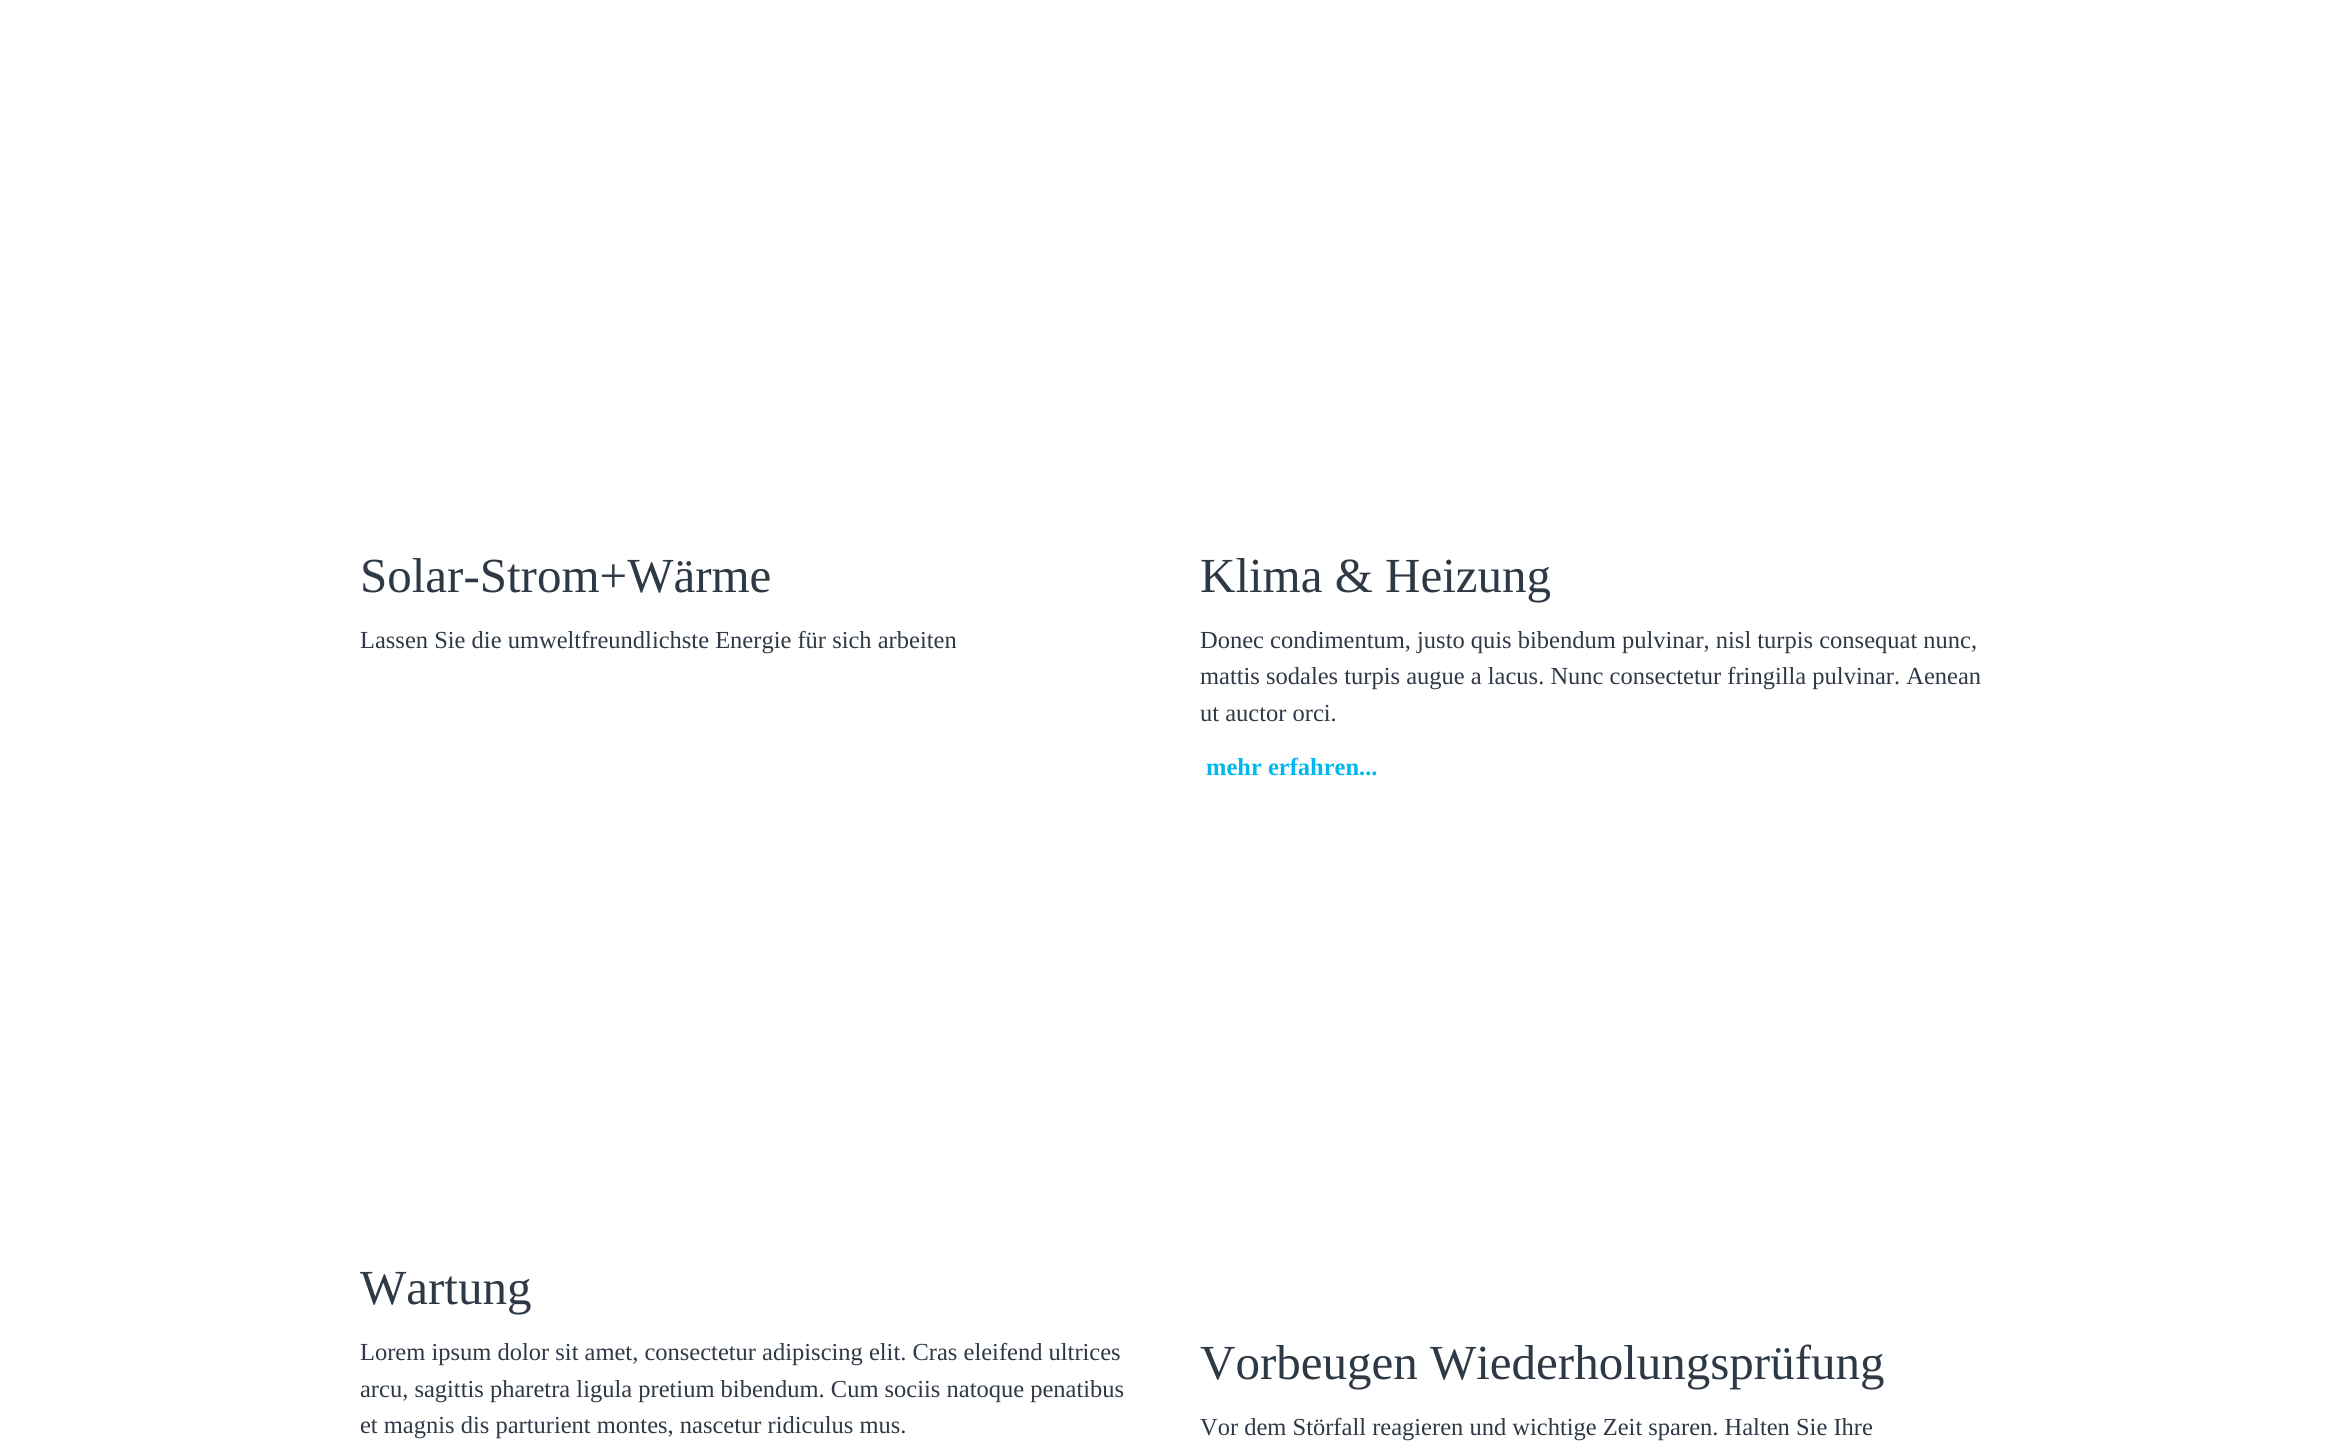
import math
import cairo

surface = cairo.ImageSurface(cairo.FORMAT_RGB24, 2346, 1445)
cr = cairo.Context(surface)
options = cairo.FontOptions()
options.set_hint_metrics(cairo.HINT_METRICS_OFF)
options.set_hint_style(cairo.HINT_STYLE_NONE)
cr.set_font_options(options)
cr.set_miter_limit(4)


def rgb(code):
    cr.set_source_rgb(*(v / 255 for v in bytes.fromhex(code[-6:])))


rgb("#ffffff")
cr.paint()
cr.select_font_face("Liberation Serif")
cr.set_font_size(49)
rgb("#2f3945")
cr.move_to(360, 592)
cr.show_text("Solar-Strom+Wärme")
cr.set_font_size(24.5)
cr.move_to(360, 648)
cr.show_text("Lassen Sie die umweltfreundlichste Energie für sich arbeiten")
cr.set_font_size(49)
cr.move_to(1200, 592)
cr.show_text("Klima & Heizung")
cr.set_font_size(24.5)
for x, y, s in [
    (1200, 648, "Donec condimentum, justo quis bibendum pulvinar, nisl turpis consequat nunc,"),
    (1200, 684, "mattis sodales turpis augue a lacus. Nunc consectetur fringilla pulvinar. Aenean"),
    (1200, 721, "ut auctor orci."),
]:
    cr.move_to(x, y)
    cr.show_text(s)
cr.select_font_face("Liberation Serif", cairo.FONT_SLANT_NORMAL, cairo.FONT_WEIGHT_BOLD)
rgb("#00b7ee")
cr.move_to(1206, 775)
cr.show_text("mehr erfahren...")
cr.select_font_face("Liberation Serif")
cr.set_font_size(49)
rgb("#2f3945")
cr.move_to(360, 1304)
cr.show_text("Wartung")
cr.set_font_size(24.5)
for x, y, s in [
    (360, 1360, "Lorem ipsum dolor sit amet, consectetur adipiscing elit. Cras eleifend ultrices"),
    (360, 1397, "arcu, sagittis pharetra ligula pretium bibendum. Cum sociis natoque penatibus"),
    (360, 1433, "et magnis dis parturient montes, nascetur ridiculus mus."),
]:
    cr.move_to(x, y)
    cr.show_text(s)
cr.set_font_size(49)
cr.move_to(1200, 1379)
cr.show_text("Vorbeugen Wiederholungsprüfung")
cr.set_font_size(24.5)
cr.move_to(1200, 1435)
cr.show_text("Vor dem Störfall reagieren und wichtige Zeit sparen. Halten Sie Ihre")
surface.write_to_png("page.png")
